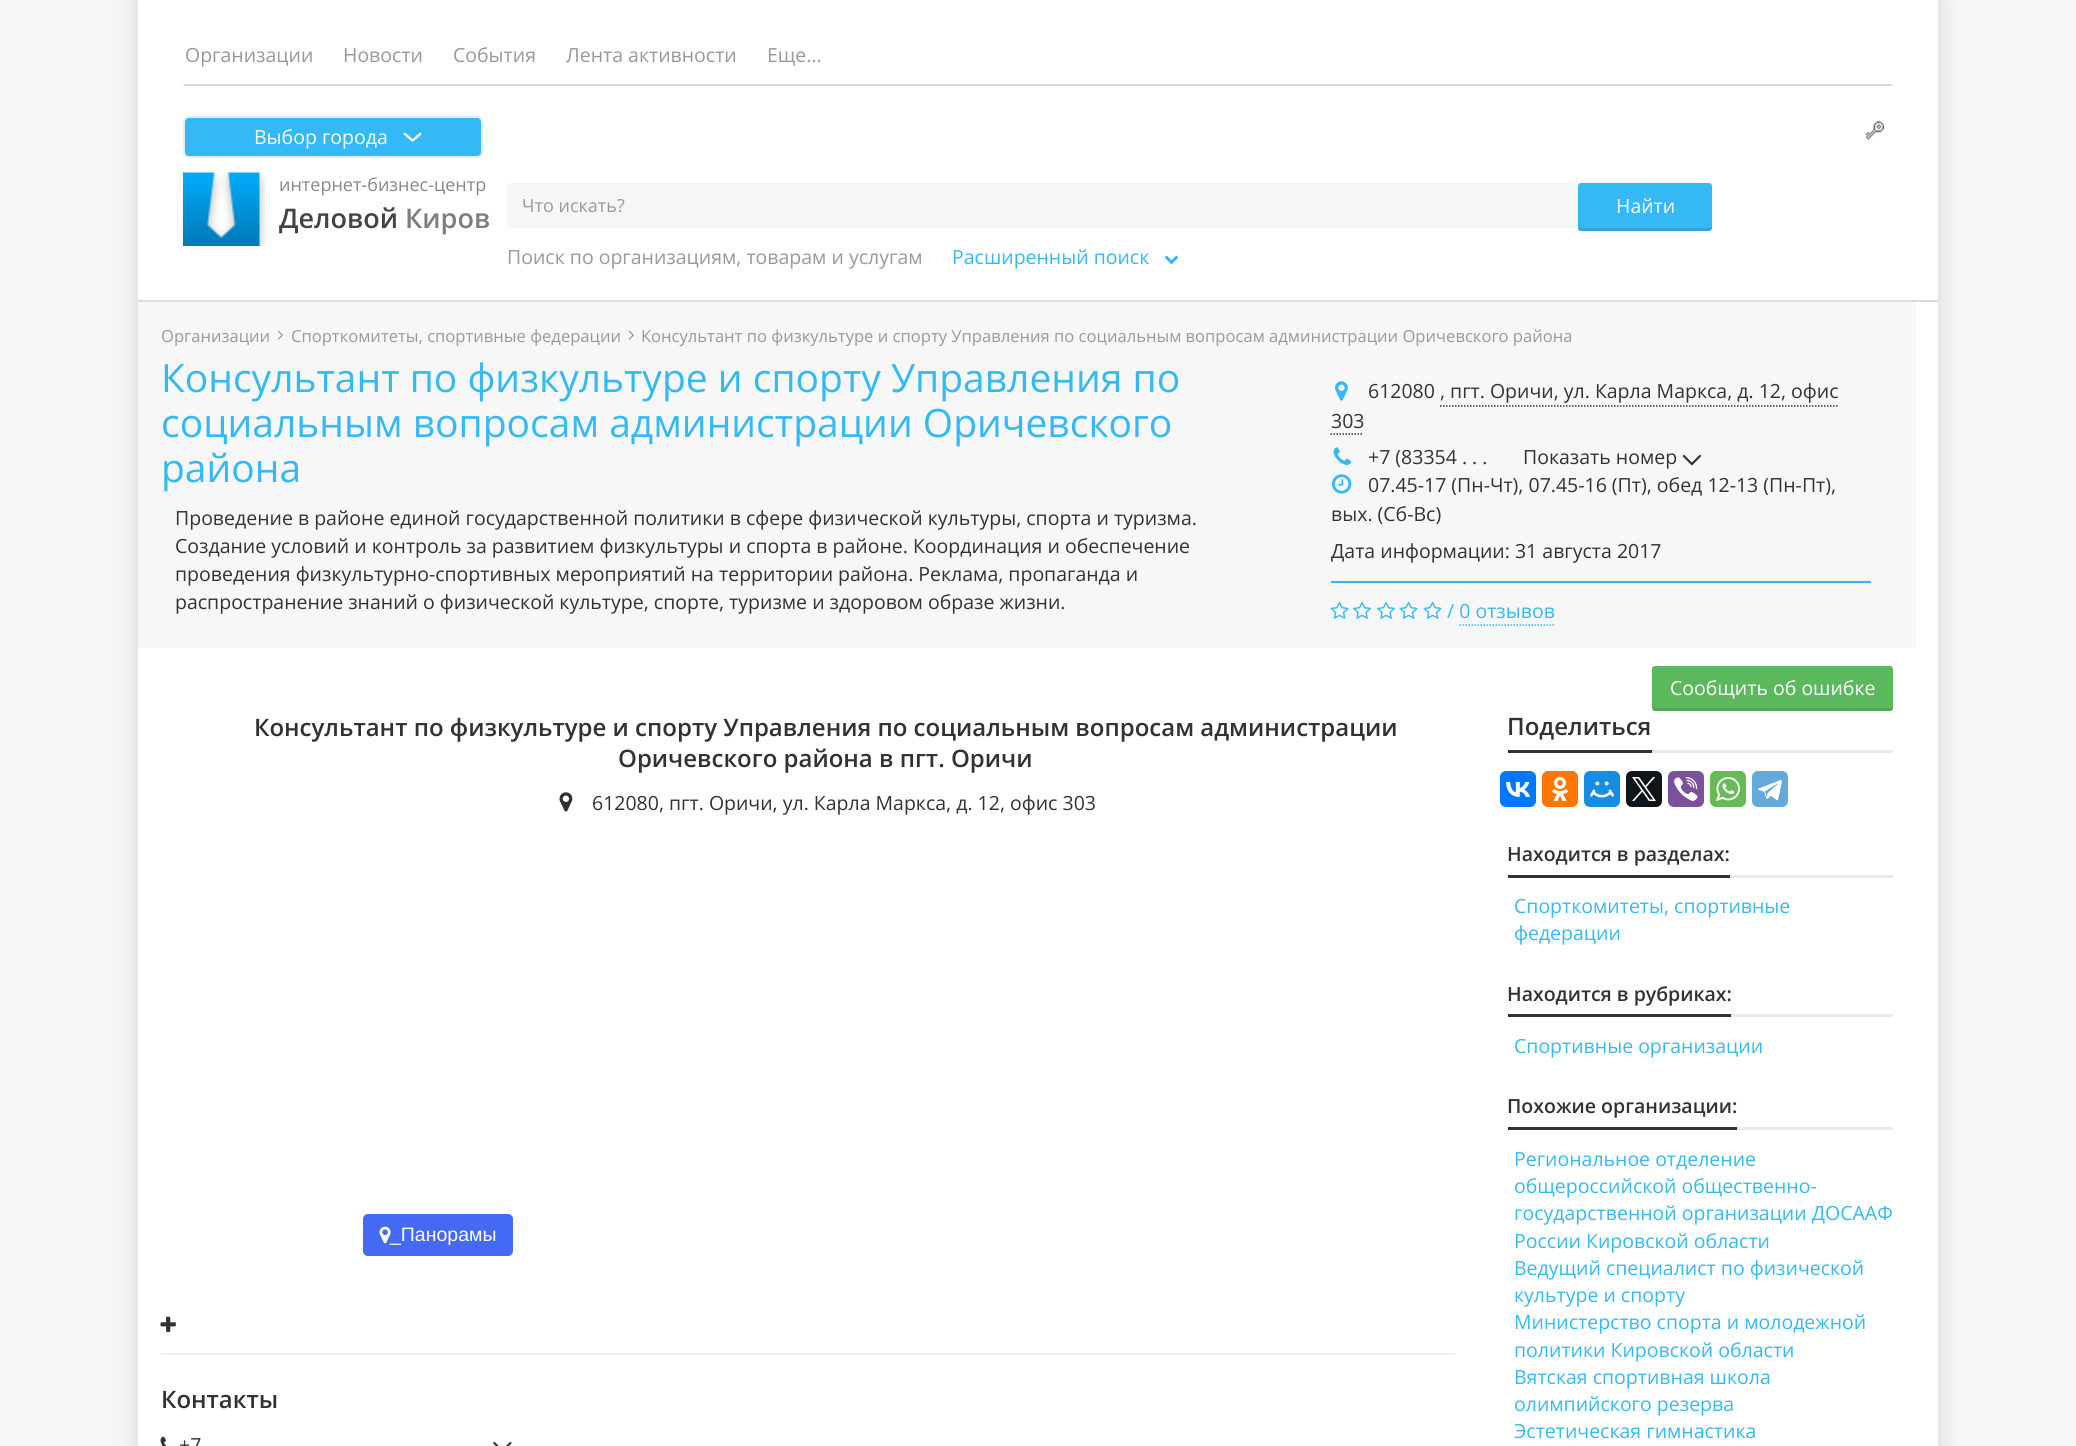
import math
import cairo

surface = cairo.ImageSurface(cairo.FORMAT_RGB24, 2076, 1446)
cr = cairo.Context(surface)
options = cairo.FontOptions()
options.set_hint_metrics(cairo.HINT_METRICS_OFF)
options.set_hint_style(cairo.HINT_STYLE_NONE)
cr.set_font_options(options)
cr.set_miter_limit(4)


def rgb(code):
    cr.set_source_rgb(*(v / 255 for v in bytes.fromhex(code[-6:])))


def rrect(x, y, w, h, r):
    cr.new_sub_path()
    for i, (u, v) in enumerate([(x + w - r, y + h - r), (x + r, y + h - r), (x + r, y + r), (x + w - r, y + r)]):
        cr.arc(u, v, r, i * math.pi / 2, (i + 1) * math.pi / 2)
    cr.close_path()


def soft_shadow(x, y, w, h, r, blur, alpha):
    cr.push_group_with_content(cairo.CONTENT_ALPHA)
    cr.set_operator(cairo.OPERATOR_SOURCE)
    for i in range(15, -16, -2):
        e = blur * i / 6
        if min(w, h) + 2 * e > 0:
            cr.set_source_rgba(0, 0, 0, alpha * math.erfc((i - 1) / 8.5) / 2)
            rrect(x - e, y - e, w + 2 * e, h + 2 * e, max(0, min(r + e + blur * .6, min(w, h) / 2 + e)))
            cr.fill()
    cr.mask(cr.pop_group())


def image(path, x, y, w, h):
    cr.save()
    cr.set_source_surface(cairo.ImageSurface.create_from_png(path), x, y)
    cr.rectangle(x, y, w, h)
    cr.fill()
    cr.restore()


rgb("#f6f6f6")
cr.paint()
rgb("#000000")
soft_shadow(138, 0, 1800, 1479, 0, 11, 0.15)
rgb("#ffffff")
cr.rectangle(138, 0, 1800, 1446)
cr.fill()
rgb("#dcdbd8")
cr.rectangle(138, 300, 1800, 2)
cr.fill()
cr.new_path()
cr.move_to(1893, 86)
cr.line_to(183, 86)
cr.line_to(184, 84)
cr.line_to(1892, 84)
cr.close_path()
cr.fill()
rgb("#34b9f5")
rrect(184, 117, 298, 40, 5)
cr.fill_preserve()
rgb("#eaeaea")
cr.stroke()
image("img/1.png", 403, 132, 19, 10)
image("img/2.png", 1866, 121, 18, 19)
image("img/3.png", 183, 172, 83, 74)
rgb("#f6f6f6")
rrect(507, 183, 1071, 45, 3)
cr.fill()
rgb("#34b9f5")
rrect(1578, 183, 134, 48, 3)
cr.fill()
cr.set_source_rgba(0, 0, 0, 0.1)
cr.new_path()
cr.move_to(1578, 225)
cr.line_to(1578, 228)
cr.curve_to(1578, 230, 1579, 231, 1581, 231)
cr.line_to(1709, 231)
cr.curve_to(1711, 231, 1712, 230, 1712, 228)
cr.line_to(1712, 225)
cr.curve_to(1712, 227, 1710, 228, 1708, 228)
cr.line_to(1581, 228)
cr.curve_to(1579, 228, 1578, 227, 1578, 225)
cr.close_path()
cr.fill()
image("img/4.png", 1164, 255, 15, 10)
rgb("#f7f7f7")
cr.rectangle(138, 302, 1778, 346)
cr.fill()
image("img/5.png", 277, 330, 6, 10)
image("img/5.png", 628, 330, 6, 10)
image("img/6.png", 1335, 381, 13, 20)
cr.new_path()
cr.move_to(1440, 406)
cr.line_to(1839, 406)
rgb("#323232")
cr.set_line_width(1.5)
cr.set_dash([1.5, 1.5])
cr.stroke()
cr.new_path()
cr.move_to(1330.5, 434)
cr.line_to(1363.5, 434)
cr.stroke()
image("img/7.png", 1333, 447, 19, 18)
image("img/8.png", 1682, 455, 19, 11)
image("img/9.png", 1332, 474, 20, 20)
rgb("#34b9f5")
cr.rectangle(1331, 581, 540, 2)
cr.fill()
image("img/10.png", 1330, 601, 19, 18)
image("img/11.png", 1353, 601, 19, 18)
image("img/11.png", 1377, 601, 19, 18)
image("img/10.png", 1399, 601, 19, 18)
image("img/10.png", 1423, 601, 19, 18)
cr.new_path()
cr.move_to(1459.5, 625)
cr.line_to(1554, 625)
cr.stroke()
image("img/12.png", 559, 792, 14, 20)
rgb("#4469f5")
rrect(363, 1214, 150, 42, 5)
cr.fill()
image("img/13.png", 379, 1226, 12, 18)
image("img/14.png", 160, 1316, 16, 16)
rgb("#eeeeee")
cr.rectangle(161, 1353, 1294, 2)
cr.fill()
image("img/15.png", 160, 1436, 7, 10)
image("img/16.png", 493, 1442, 19, 4)
rgb("#5cb85c")
rrect(1652, 666, 241, 45, 3)
cr.fill()
cr.set_source_rgba(0, 0, 0, 0.1)
cr.new_path()
cr.move_to(1652, 705)
cr.curve_to(1652, 707, 1652, 711, 1655, 711)
cr.line_to(1890, 711)
cr.curve_to(1893, 711, 1893, 707, 1893, 705)
cr.curve_to(1893, 707, 1892, 708, 1890, 708)
cr.line_to(1654, 708)
cr.curve_to(1653, 708, 1652, 707, 1652, 705)
cr.close_path()
cr.fill()
rgb("#323232")
cr.rectangle(1508, 750, 144, 3)
cr.fill()
rgb("#e9e9e9")
cr.rectangle(1652, 750, 241, 3)
cr.fill()
rgb("#0077ff")
rrect(1500, 771, 36, 36, 6)
cr.fill()
image("img/17.png", 1506, 781, 24, 16)
rgb("#ff7700")
rrect(1542, 771, 36, 36, 6)
cr.fill()
image("img/18.png", 1552, 777, 17, 24)
rgb("#168de2")
rrect(1584, 771, 36, 36, 6)
cr.fill()
image("img/19.png", 1590, 781, 24, 17)
rgb("#0f1419")
rrect(1626, 771, 36, 36, 6)
cr.fill()
image("img/20.png", 1632, 777, 24, 24)
rgb("#7b519d")
rrect(1668, 771, 36, 36, 6)
cr.fill()
image("img/21.png", 1674, 777, 24, 24)
rgb("#65bc54")
rrect(1710, 771, 36, 36, 6)
cr.fill()
image("img/22.png", 1716, 777, 24, 24)
rgb("#64a9dc")
rrect(1752, 771, 36, 36, 6)
cr.fill()
image("img/23.png", 1758, 780, 24, 21)
for x, y, w, h, color in [
    (1508, 875, 222, 3, "#323232"),
    (1730, 875, 163, 3, "#e9e9e9"),
    (1508, 1014, 223, 3, "#323232"),
    (1731, 1014, 162, 3, "#e9e9e9"),
    (1508, 1127, 229, 3, "#323232"),
    (1737, 1127, 156, 3, "#e9e9e9"),
]:
    rgb(color)
    cr.rectangle(x, y, w, h)
    cr.fill()
cr.select_font_face("Open Sans")
cr.set_font_size(19.5)
rgb("#999999")
for x, y, s in [
    (185, 62, "Организации"),
    (343, 62, "Новости"),
    (453, 62, "События"),
    (566, 62, "Лента активности"),
    (767, 62, "Еще..."),
]:
    cr.move_to(x, y)
    cr.show_text(s)
rgb("#ffffff")
cr.move_to(254, 144)
cr.show_text("Выбор города")
cr.set_font_size(18)
rgb("#878787")
cr.move_to(279, 191)
cr.show_text("интернет-бизнес-центр")
cr.select_font_face("Open Sans SemiBold")
cr.set_font_size(27)
rgb("#444444")
cr.move_to(279, 228)
cr.show_text("Деловой")
rgb("#7e7e7e")
cr.move_to(405, 228)
cr.show_text("Киров")
cr.select_font_face("Open Sans")
cr.set_font_size(18)
rgb("#999999")
cr.move_to(522, 212)
cr.show_text("Что искать?")
cr.set_font_size(19.5)
rgb("#ffffff")
cr.move_to(1616, 213)
cr.show_text("Найти")
rgb("#999999")
cr.move_to(507, 264)
cr.show_text("Поиск по организациям, товарам и услугам")
rgb("#34b9f5")
cr.move_to(952, 264)
cr.show_text("Расширенный поиск")
cr.set_font_size(16.58)
rgb("#999999")
for x, y, s in [
    (161, 342, "Организации"),
    (291, 342, "Спорткомитеты, спортивные федерации"),
    (641, 342, "Консультант по физкультуре и спорту Управления по социальным вопросам администрации Оричевского района"),
]:
    cr.move_to(x, y)
    cr.show_text(s)
cr.set_font_size(39)
rgb("#34b9f5")
for x, y, s in [
    (161, 392, "Консультант по физкультуре и спорту Управления по"),
    (161, 437, "социальным вопросам администрации Оричевского"),
    (161, 482, "района"),
]:
    cr.move_to(x, y)
    cr.show_text(s)
cr.set_font_size(19.5)
rgb("#323232")
for x, y, s in [
    (175, 525, "Проведение в районе единой государственной политики в сфере физической культуры, спорта и туризма."),
    (175, 553, "Создание условий и контроль за развитием физкультуры и спорта в районе. Координация и обеспечение"),
    (175, 581, "проведения физкультурно-спортивных мероприятий на территории района. Реклама, пропаганда и"),
    (175, 609, "распространение знаний о физической культуре, спорте, туризме и здоровом образе жизни."),
    (1368, 398, "612080 , пгт. Оричи, ул. Карла Маркса, д. 12, офис"),
    (1331, 428, "303"),
    (1368, 464, "+7 (83354 . . ."),
    (1523, 464, "Показать номер"),
    (1368, 492, "07.45-17 (Пн-Чт), 07.45-16 (Пт), обед 12-13 (Пн-Пт),"),
    (1331, 521, "вых. (Сб-Вс)"),
    (1331, 558, "Дата информации: 31 августа 2017"),
]:
    cr.move_to(x, y)
    cr.show_text(s)
rgb("#34b9f5")
cr.move_to(1447, 618)
cr.show_text("/ 0 отзывов")
cr.select_font_face("Open Sans SemiBold")
cr.set_font_size(24)
rgb("#323232")
cr.move_to(254, 736)
cr.show_text("Консультант по физкультуре и спорту Управления по социальным вопросам администрации")
cr.move_to(618, 767)
cr.show_text("Оричевского района в пгт. Оричи")
cr.select_font_face("Open Sans")
cr.set_font_size(19.5)
cr.move_to(592, 810)
cr.show_text("612080, пгт. Оричи, ул. Карла Маркса, д. 12, офис 303")
cr.select_font_face("Liberation Sans")
rgb("#ffffff")
cr.move_to(390, 1241)
cr.show_text("_Панорамы")
cr.select_font_face("Open Sans SemiBold")
cr.set_font_size(24)
rgb("#323232")
cr.move_to(161, 1408)
cr.show_text("Контакты")
cr.select_font_face("Open Sans")
cr.set_font_size(19.5)
cr.move_to(179, 1452)
cr.show_text("+7")
rgb("#ffffff")
cr.move_to(1670, 695)
cr.show_text("Сообщить об ошибке")
cr.select_font_face("Open Sans SemiBold")
cr.set_font_size(24)
rgb("#323232")
cr.move_to(1507, 735)
cr.show_text("Поделиться")
cr.set_font_size(19.5)
cr.move_to(1507, 861)
cr.show_text("Находится в разделах:")
cr.select_font_face("Open Sans")
rgb("#34b9f5")
cr.move_to(1514, 913)
cr.show_text("Спорткомитеты, спортивные")
cr.move_to(1514, 940)
cr.show_text("федерации")
cr.select_font_face("Open Sans SemiBold")
rgb("#323232")
cr.move_to(1507, 1001)
cr.show_text("Находится в рубриках:")
cr.select_font_face("Open Sans")
rgb("#34b9f5")
cr.move_to(1514, 1053)
cr.show_text("Спортивные организации")
cr.select_font_face("Open Sans SemiBold")
rgb("#323232")
cr.move_to(1507, 1113)
cr.show_text("Похожие организации:")
cr.select_font_face("Open Sans")
rgb("#34b9f5")
for x, y, s in [
    (1514, 1166, "Региональное отделение"),
    (1514, 1193, "общероссийской общественно-"),
    (1514, 1220, "государственной организации ДОСААФ"),
    (1514, 1248, "России Кировской области"),
    (1514, 1275, "Ведущий специалист по физической"),
    (1514, 1302, "культуре и спорту"),
    (1514, 1329, "Министерство спорта и молодежной"),
    (1514, 1357, "политики Кировской области"),
    (1514, 1384, "Вятская спортивная школа"),
    (1514, 1411, "олимпийского резерва"),
    (1514, 1438, "Эстетическая гимнастика"),
]:
    cr.move_to(x, y)
    cr.show_text(s)
surface.write_to_png("page.png")
